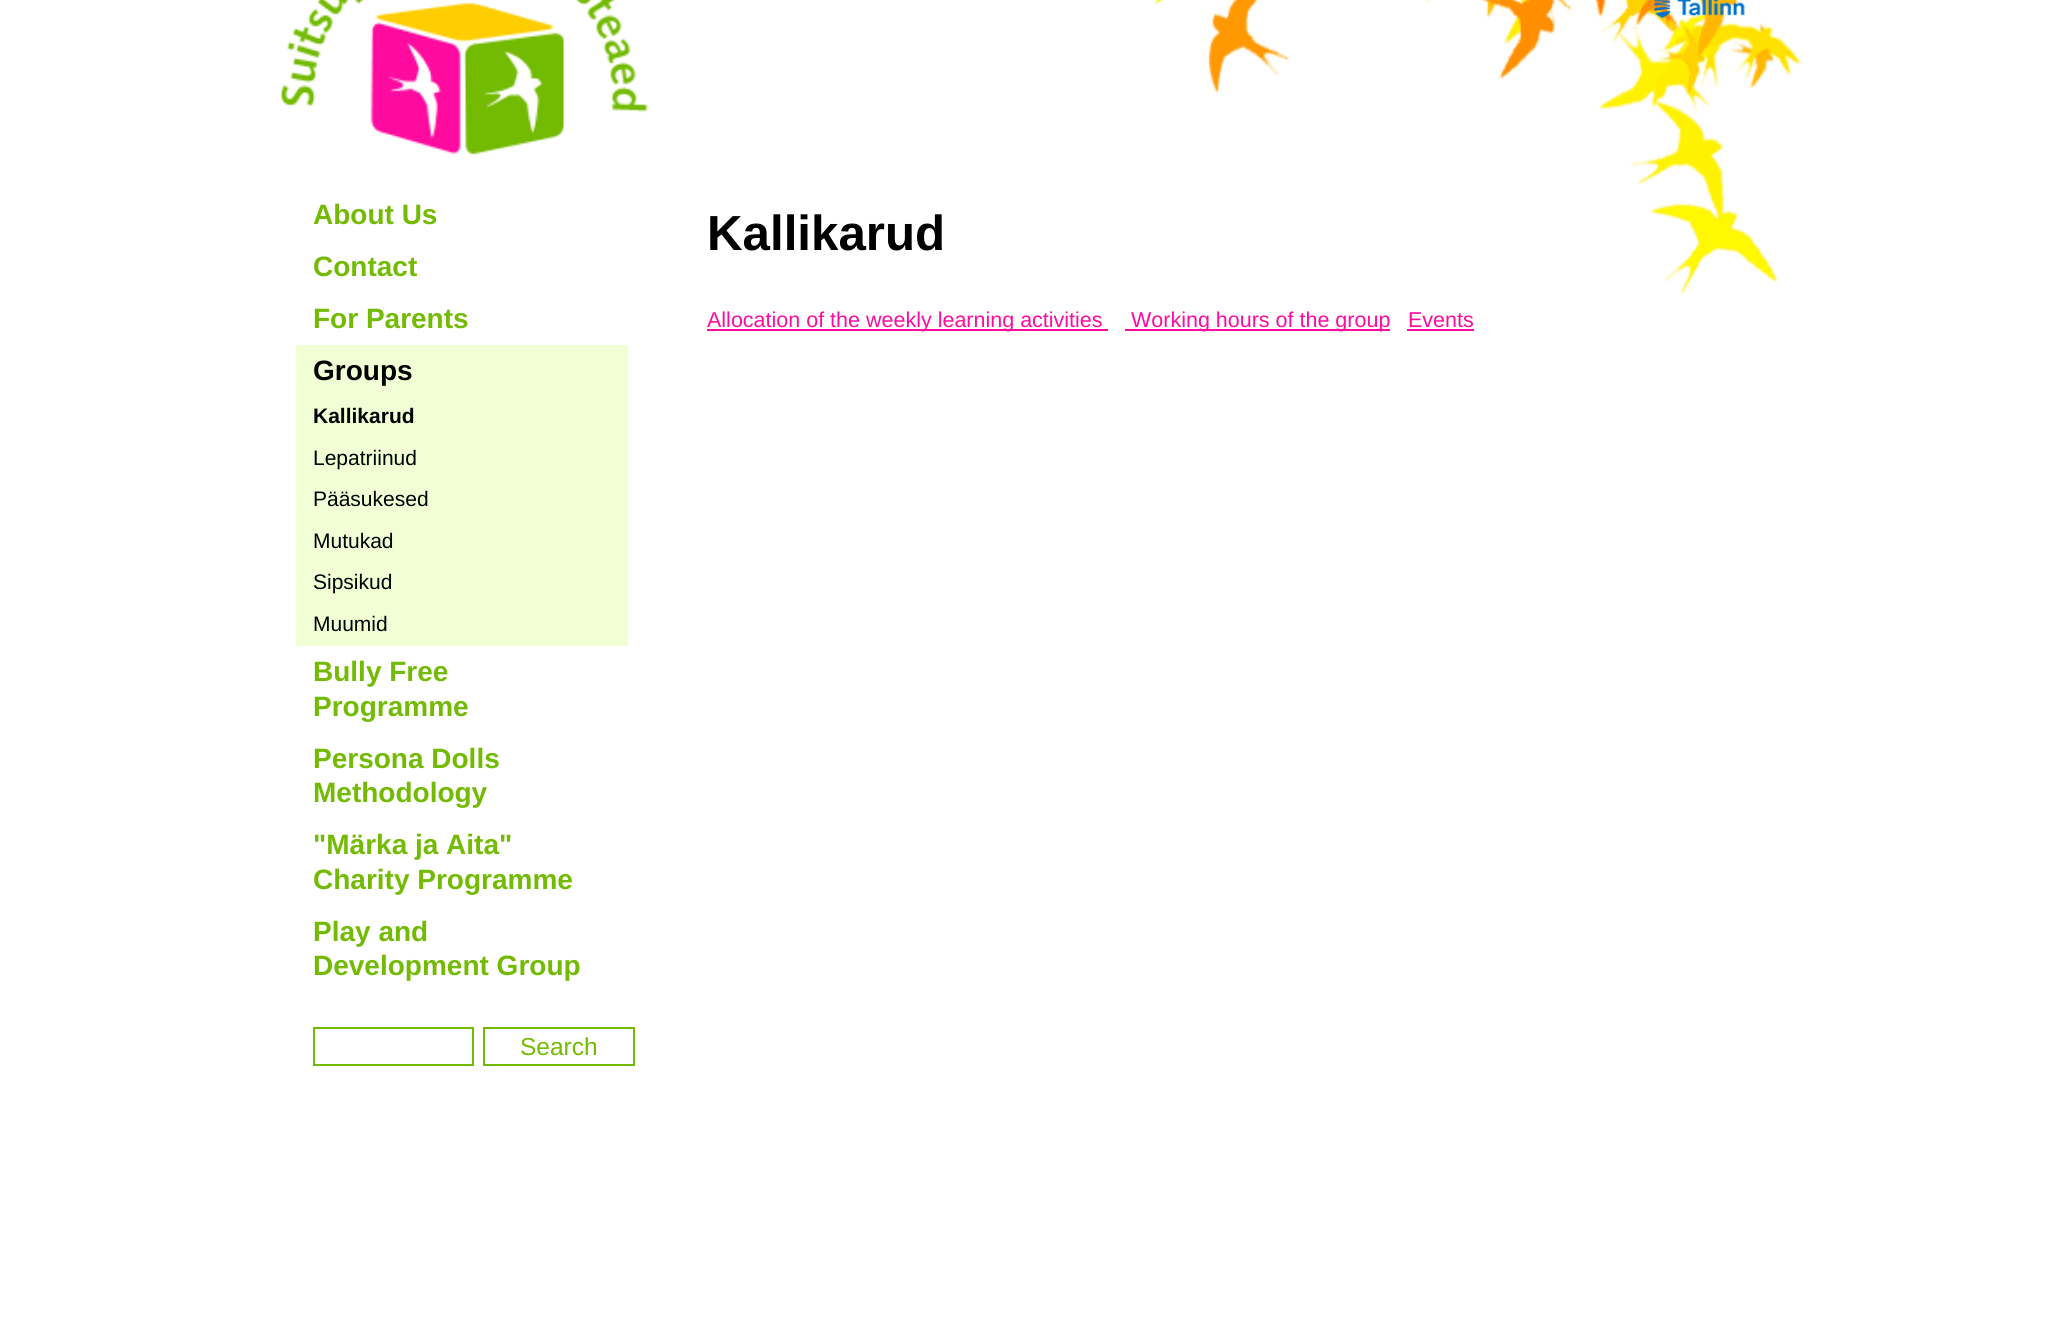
import math
import cairo

surface = cairo.ImageSurface(cairo.FORMAT_RGB24, 2071, 1325)
cr = cairo.Context(surface)
options = cairo.FontOptions()
options.set_hint_metrics(cairo.HINT_METRICS_OFF)
options.set_hint_style(cairo.HINT_STYLE_NONE)
cr.set_font_options(options)
cr.set_miter_limit(4)


def rgb(code):
    cr.set_source_rgb(*(v / 255 for v in bytes.fromhex(code[-6:])))


def image(path, x, y, w, h):
    cr.save()
    cr.set_source_surface(cairo.ImageSurface.create_from_png(path), x, y)
    cr.rectangle(x, y, w, h)
    cr.fill()
    cr.restore()


rgb("#ffffff")
cr.paint()
image("img/1.png", 1154, 0, 648, 295)
image("img/2.png", 1654, 0, 91, 19)
image("img/3.png", 279, 0, 369, 155)
rgb("#f1ffd5")
cr.rectangle(296, 345, 332, 301)
cr.fill()
cr.rectangle(314, 1028, 159, 37)
rgb("#73bb03")
cr.stroke()
cr.rectangle(484, 1028, 150, 37)
cr.stroke()
for x, y, w, h, color in [
    (707, 329, 401, 2, "#ff0ba0"),
    (1125, 329, 265, 2, "#ff0ba0"),
    (1407, 329, 67, 2, "#ff0ba0"),
]:
    rgb(color)
    cr.rectangle(x, y, w, h)
    cr.fill()
cr.select_font_face("Liberation Sans", cairo.FONT_SLANT_NORMAL, cairo.FONT_WEIGHT_BOLD)
cr.set_font_size(28)
rgb("#73bb03")
for x, y, s in [
    (313, 224, "About Us"),
    (313, 276, "Contact"),
    (313, 328, "For Parents"),
]:
    cr.move_to(x, y)
    cr.show_text(s)
rgb("#000000")
cr.move_to(313, 380)
cr.show_text("Groups")
cr.set_font_size(21)
cr.move_to(313, 423)
cr.show_text("Kallikarud")
cr.select_font_face("Liberation Sans")
for x, y, s in [
    (313, 465, "Lepatriinud"),
    (313, 506, "Pääsukesed"),
    (313, 548, "Mutukad"),
    (313, 589, "Sipsikud"),
    (313, 631, "Muumid"),
]:
    cr.move_to(x, y)
    cr.show_text(s)
cr.select_font_face("Liberation Sans", cairo.FONT_SLANT_NORMAL, cairo.FONT_WEIGHT_BOLD)
cr.set_font_size(28)
rgb("#73bb03")
for x, y, s in [
    (313, 681, "Bully Free"),
    (313, 716, "Programme"),
    (313, 768, "Persona Dolls"),
    (313, 802, "Methodology"),
    (313, 854, "\"Märka ja Aita\""),
    (313, 889, "Charity Programme"),
    (313, 941, "Play and"),
    (313, 975, "Development Group"),
]:
    cr.move_to(x, y)
    cr.show_text(s)
cr.select_font_face("Liberation Sans")
cr.set_font_size(24.5)
cr.move_to(520, 1055)
cr.show_text("Search")
cr.select_font_face("Liberation Sans", cairo.FONT_SLANT_NORMAL, cairo.FONT_WEIGHT_BOLD)
cr.set_font_size(49.25)
rgb("#000000")
cr.move_to(707, 250)
cr.show_text("Kallikarud")
cr.select_font_face("Liberation Sans")
cr.set_font_size(21.5)
rgb("#ff0ba0")
for x, y, s in [
    (707, 327, "Allocation of the weekly learning activities"),
    (1131, 327, "Working hours of the group"),
    (1408, 327, "Events"),
]:
    cr.move_to(x, y)
    cr.show_text(s)
surface.write_to_png("page.png")
